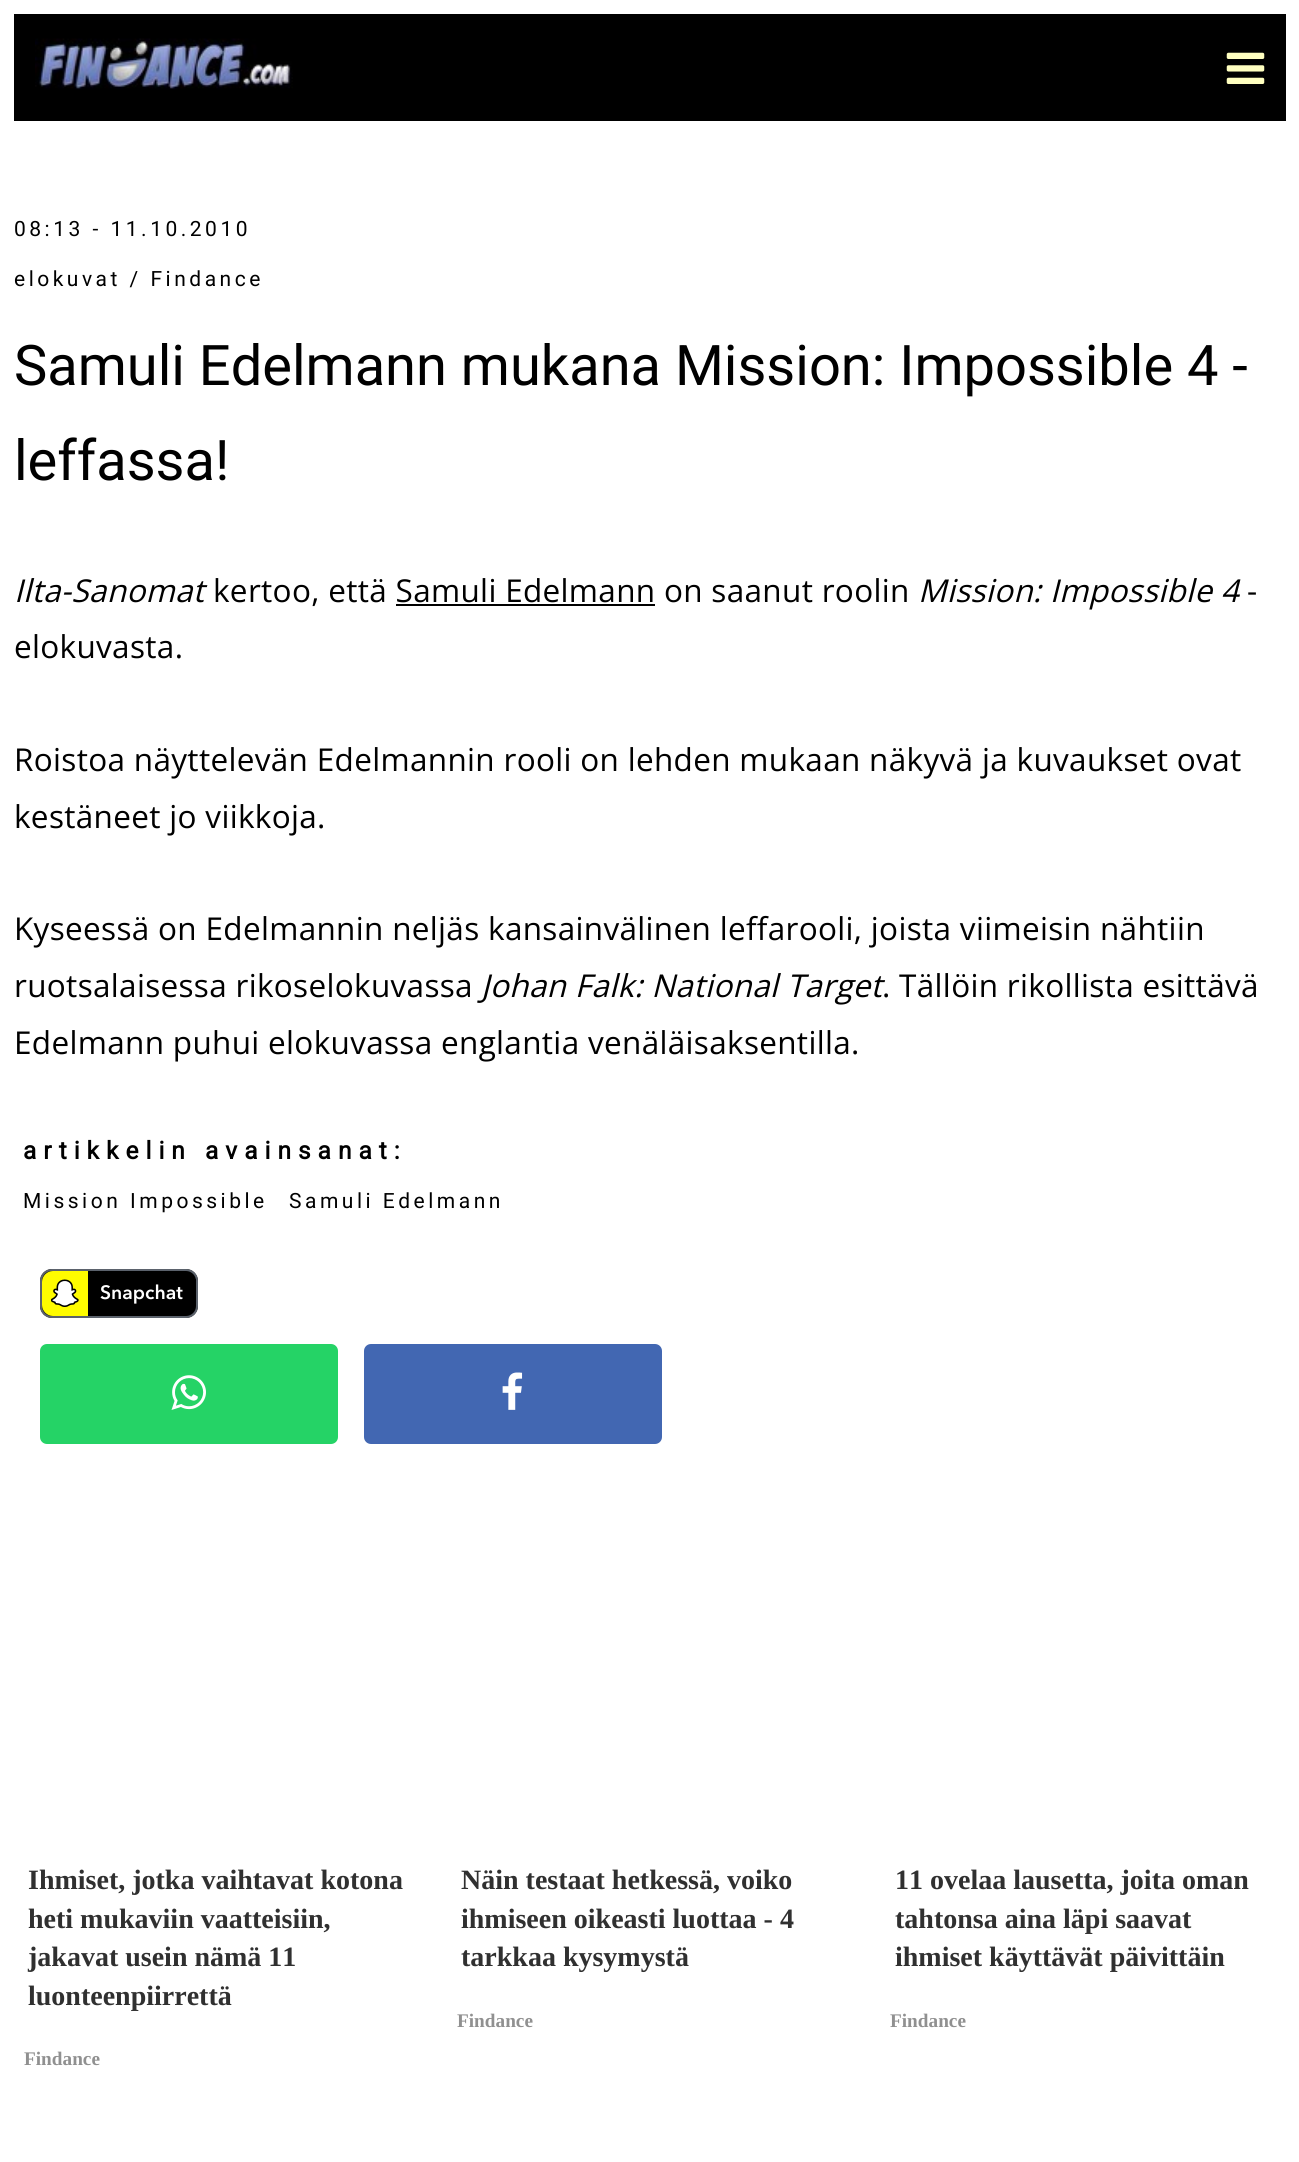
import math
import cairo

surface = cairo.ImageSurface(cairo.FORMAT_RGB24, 1299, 2162)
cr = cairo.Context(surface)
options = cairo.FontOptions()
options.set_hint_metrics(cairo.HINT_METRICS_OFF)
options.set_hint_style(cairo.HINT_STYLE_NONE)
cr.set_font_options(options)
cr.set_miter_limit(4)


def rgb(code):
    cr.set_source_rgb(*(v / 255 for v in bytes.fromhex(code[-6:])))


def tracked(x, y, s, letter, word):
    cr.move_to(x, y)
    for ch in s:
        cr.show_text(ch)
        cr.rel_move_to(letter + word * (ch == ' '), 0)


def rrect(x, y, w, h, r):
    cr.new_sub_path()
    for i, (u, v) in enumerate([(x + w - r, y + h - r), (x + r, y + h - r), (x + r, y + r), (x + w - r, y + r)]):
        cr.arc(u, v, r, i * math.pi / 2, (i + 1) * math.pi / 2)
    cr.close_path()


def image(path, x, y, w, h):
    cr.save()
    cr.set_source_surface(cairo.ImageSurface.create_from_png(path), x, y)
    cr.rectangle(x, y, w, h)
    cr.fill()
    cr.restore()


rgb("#ffffff")
cr.paint()
rgb("#000000")
cr.rectangle(14, 14, 1272, 107)
cr.fill()
image("img/1.png", 35, 38, 258, 52)
image("img/2.png", 1226, 52, 39, 32)
cr.rectangle(396, 604, 259, 2)
cr.fill()
rrect(40, 1269, 158, 49, 12)
cr.fill()
rrect(41, 1270, 156, 47, 11)
cr.set_source_rgba(0.396, 0.427, 0.471, 0.9)
cr.stroke()
rgb("#fffc00")
cr.new_path()
cr.move_to(53, 1271)
cr.line_to(88, 1271)
cr.line_to(88, 1316)
cr.line_to(53, 1316)
cr.curve_to(47, 1316, 42, 1311, 42, 1305)
cr.line_to(42, 1282)
cr.curve_to(42, 1276, 47, 1271, 53, 1271)
cr.close_path()
cr.fill()
image("img/3.png", 51, 1279, 28, 28)
rgb("#000000")
cr.rectangle(195, 1279, 1, 2)
cr.fill()
rgb("#25d366")
rrect(40, 1344, 298, 100, 7)
cr.fill()
image("img/4.png", 171, 1375, 35, 35)
rgb("#4267b2")
rrect(364, 1344, 298, 100, 7)
cr.fill()
image("img/5.png", 502, 1372, 21, 38)
cr.select_font_face("Roboto")
cr.set_font_size(21)
rgb("#000000")
tracked(14, 236, "08:13 - 11.10.2010", 3.5, 0)
tracked(14, 286, "elokuvat / Findance", 3.5, 0)
cr.set_font_size(56)
cr.move_to(14, 385)
cr.show_text("Samuli Edelmann mukana Mission: Impossible 4 -")
cr.move_to(14, 480)
cr.show_text("leffassa!")
cr.select_font_face("Open Sans", cairo.FONT_SLANT_ITALIC)
cr.set_font_size(31.5)
tracked(14, 602, "Ilta-Sanomat", 0.32, 0)
cr.select_font_face("Open Sans")
tracked(213, 602, "kertoo, että Samuli Edelmann on saanut roolin", 0.32, 0)
cr.select_font_face("Open Sans", cairo.FONT_SLANT_ITALIC)
tracked(918, 602, "Mission: Impossible 4", 0.32, 0)
cr.select_font_face("Open Sans")
for x, y, s in [
    (1247, 602, "-"),
    (14, 658, "elokuvasta."),
    (14, 771, "Roistoa näyttelevän Edelmannin rooli on lehden mukaan näkyvä ja kuvaukset ovat"),
    (14, 828, "kestäneet jo viikkoja."),
    (14, 940, "Kyseessä on Edelmannin neljäs kansainvälinen leffarooli, joista viimeisin nähtiin"),
    (14, 997, "ruotsalaisessa rikoselokuvassa"),
]:
    tracked(x, y, s, 0.32, 0)
cr.select_font_face("Open Sans", cairo.FONT_SLANT_ITALIC)
tracked(481, 997, "Johan Falk: National Target", 0.32, 0)
cr.select_font_face("Open Sans")
tracked(882, 997, ". Tällöin rikollista esittävä", 0.32, 0)
tracked(14, 1054, "Edelmann puhui elokuvassa englantia venäläisaksentilla.", 0.32, 0)
cr.select_font_face("Roboto", cairo.FONT_SLANT_NORMAL, cairo.FONT_WEIGHT_BOLD)
cr.set_font_size(24.5)
tracked(23, 1159, "artikkelin avainsanat:", 7, 0)
cr.select_font_face("Roboto")
cr.set_font_size(21)
tracked(23, 1208, "Mission Impossible", 3.5, 0)
tracked(289, 1208, "Samuli Edelmann", 3.5, 0)
cr.select_font_face("Avenir Next SemiBold")
cr.set_font_size(19.25)
rgb("#ffffff")
cr.move_to(100, 1299)
cr.show_text("Snapchat")
cr.select_font_face("Liberation Serif", cairo.FONT_SLANT_NORMAL, cairo.FONT_WEIGHT_BOLD)
cr.set_font_size(28)
rgb("#303030")
for x, y, s in [
    (28, 1889, "Ihmiset, jotka vaihtavat kotona"),
    (28, 1928, "heti mukaviin vaatteisiin,"),
    (28, 1966, "jakavat usein nämä 11"),
    (28, 2005, "luonteenpiirrettä"),
]:
    cr.move_to(x, y)
    cr.show_text(s)
cr.set_font_size(19.25)
rgb("#909090")
cr.move_to(24, 2065)
cr.show_text("Findance")
cr.set_font_size(28)
rgb("#303030")
for x, y, s in [
    (461, 1889, "Näin testaat hetkessä, voiko"),
    (461, 1928, "ihmiseen oikeasti luottaa - 4"),
    (461, 1966, "tarkkaa kysymystä"),
]:
    cr.move_to(x, y)
    cr.show_text(s)
cr.set_font_size(19.25)
rgb("#909090")
cr.move_to(457, 2027)
cr.show_text("Findance")
cr.set_font_size(28)
rgb("#303030")
for x, y, s in [
    (895, 1889, "11 ovelaa lausetta, joita oman"),
    (895, 1928, "tahtonsa aina läpi saavat"),
    (895, 1966, "ihmiset käyttävät päivittäin"),
]:
    cr.move_to(x, y)
    cr.show_text(s)
cr.set_font_size(19.25)
rgb("#909090")
cr.move_to(890, 2027)
cr.show_text("Findance")
surface.write_to_png("page.png")
